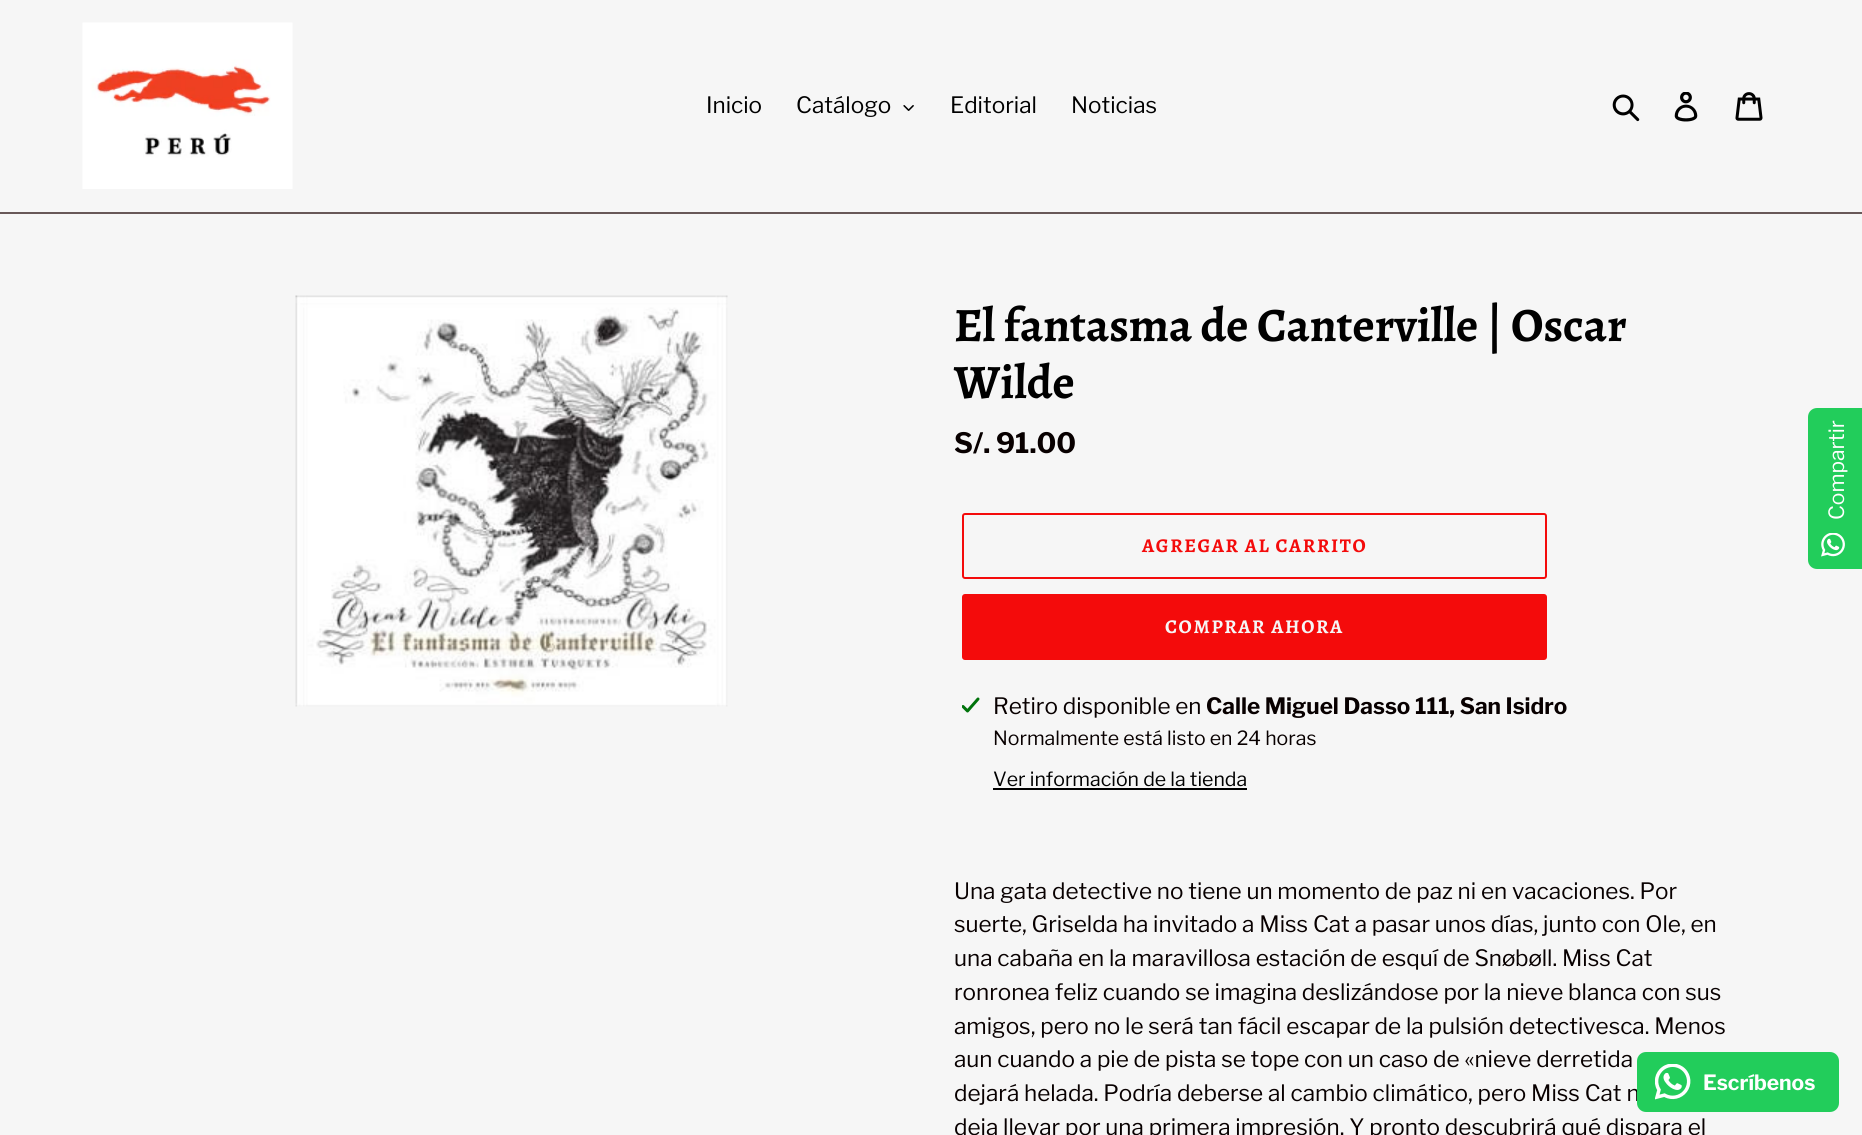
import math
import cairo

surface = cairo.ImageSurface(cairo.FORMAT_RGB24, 1862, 1135)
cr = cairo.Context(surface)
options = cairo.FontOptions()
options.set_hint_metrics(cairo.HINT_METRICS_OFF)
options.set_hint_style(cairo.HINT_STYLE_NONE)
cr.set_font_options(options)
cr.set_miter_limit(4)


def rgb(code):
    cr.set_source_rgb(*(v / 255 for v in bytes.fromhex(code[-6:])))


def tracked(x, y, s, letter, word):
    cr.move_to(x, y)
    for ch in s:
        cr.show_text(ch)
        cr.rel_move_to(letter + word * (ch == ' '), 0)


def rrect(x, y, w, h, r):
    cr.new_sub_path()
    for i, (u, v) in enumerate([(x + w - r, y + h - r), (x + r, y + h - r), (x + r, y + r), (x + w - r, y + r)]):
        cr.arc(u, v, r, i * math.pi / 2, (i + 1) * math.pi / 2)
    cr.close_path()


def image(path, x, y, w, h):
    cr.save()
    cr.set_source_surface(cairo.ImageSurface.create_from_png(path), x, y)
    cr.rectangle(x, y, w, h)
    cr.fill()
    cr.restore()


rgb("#f6f6f6")
cr.paint()
rgb("#685858")
cr.rectangle(0, 212, 1862, 2)
cr.fill()
image("img/1.png", 82, 22, 211, 167)
image("img/2.png", 903, 105, 11, 6)
image("img/3.png", 1612, 94, 28, 28)
image("img/4.png", 1674, 92, 24, 30)
image("img/5.png", 1735, 92, 28, 29)
image("img/6.png", 295, 295, 433, 412)
rrect(963, 514, 583, 64, 2)
rgb("#f40b0b")
cr.stroke()
rrect(962, 594, 585, 66, 3)
cr.fill()
image("img/7.png", 962, 697, 18, 16)
rgb("#000000")
cr.rectangle(993, 788, 254, 2)
cr.fill()
rgb("#22cd5b")
cr.new_path()
cr.move_to(1817, 408)
cr.line_to(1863, 408)
cr.line_to(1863, 569)
cr.line_to(1817, 569)
cr.curve_to(1812, 569, 1808, 565, 1808, 560)
cr.line_to(1808, 417)
cr.curve_to(1808, 412, 1812, 408, 1817, 408)
cr.close_path()
cr.fill()
image("img/8.png", 1821, 533, 24, 24)
cr.select_font_face("Libre Franklin")
cr.set_font_size(22.5)
rgb("#000000")
for x, y, s in [
    (706, 113, "Inicio"),
    (796, 113, "Catálogo"),
    (950, 113, "Editorial"),
    (1071, 113, "Noticias"),
]:
    cr.move_to(x, y)
    cr.show_text(s)
cr.select_font_face("Alegreya", cairo.FONT_SLANT_NORMAL, cairo.FONT_WEIGHT_BOLD)
cr.set_font_size(48)
cr.move_to(954, 341)
cr.show_text("El fantasma de Canterville | Oscar")
cr.move_to(954, 398)
cr.show_text("Wilde")
cr.select_font_face("Libre Franklin", cairo.FONT_SLANT_NORMAL, cairo.FONT_WEIGHT_BOLD)
cr.set_font_size(28)
rgb("#080000")
cr.move_to(954, 453)
cr.show_text("S/. 91.00")
cr.select_font_face("Alegreya", cairo.FONT_SLANT_NORMAL, cairo.FONT_WEIGHT_BOLD)
cr.set_font_size(19.5)
rgb("#f40b0b")
tracked(1142, 552, "AGREGAR AL CARRITO", 1.6, 0)
rgb("#f6f6f6")
tracked(1165, 633, "COMPRAR AHORA", 1.6, 0)
cr.select_font_face("Libre Franklin")
cr.set_font_size(22.5)
rgb("#080000")
cr.move_to(993, 714)
cr.show_text("Retiro disponible en")
cr.select_font_face("Libre Franklin", cairo.FONT_SLANT_NORMAL, cairo.FONT_WEIGHT_BOLD)
cr.move_to(1206, 714)
cr.show_text("Calle Miguel Dasso 111, San Isidro")
cr.select_font_face("Libre Franklin")
cr.set_font_size(19.5)
cr.move_to(993, 745)
cr.show_text("Normalmente está listo en 24 horas")
rgb("#000000")
cr.move_to(993, 786)
cr.show_text("Ver información de la tienda")
cr.set_font_size(22.5)
rgb("#080000")
for x, y, s in [
    (954, 899, "Una gata detective no tiene un momento de paz ni en vacaciones. Por"),
    (954, 932, "suerte, Griselda ha invitado a Miss Cat a pasar unos días, junto con Ole, en"),
    (954, 966, "una cabaña en la maravillosa estación de esquí de Snøbøll. Miss Cat"),
    (954, 1000, "ronronea feliz cuando se imagina deslizándose por la nieve blanca con sus"),
    (954, 1034, "amigos, pero no le será tan fácil escapar de la pulsión detectivesca. Menos"),
    (954, 1067, "aun cuando a pie de pista se tope con un caso de «nieve derretida"),
    (954, 1101, "dejará helada. Podría deberse al cambio climático, pero Miss Cat n"),
    (954, 1135, "deja llevar por una primera impresión. Y pronto descubrirá qué dispara el"),
]:
    cr.move_to(x, y)
    cr.show_text(s)
cr.set_font_size(21)
rgb("#ffffff")
cr.save()
cr.translate(1844, 520)
cr.rotate(-90 * math.pi / 180)
cr.move_to(0, 0)
cr.show_text("Compartir")
cr.restore()
rgb("#22cd5b")
rrect(1637, 1052, 202, 60, 9)
cr.fill()
image("img/9.png", 1655, 1064, 36, 36)
cr.select_font_face("Libre Franklin", cairo.FONT_SLANT_NORMAL, cairo.FONT_WEIGHT_BOLD)
rgb("#ffffff")
cr.move_to(1703, 1090)
cr.show_text("Escríbenos")
surface.write_to_png("page.png")
